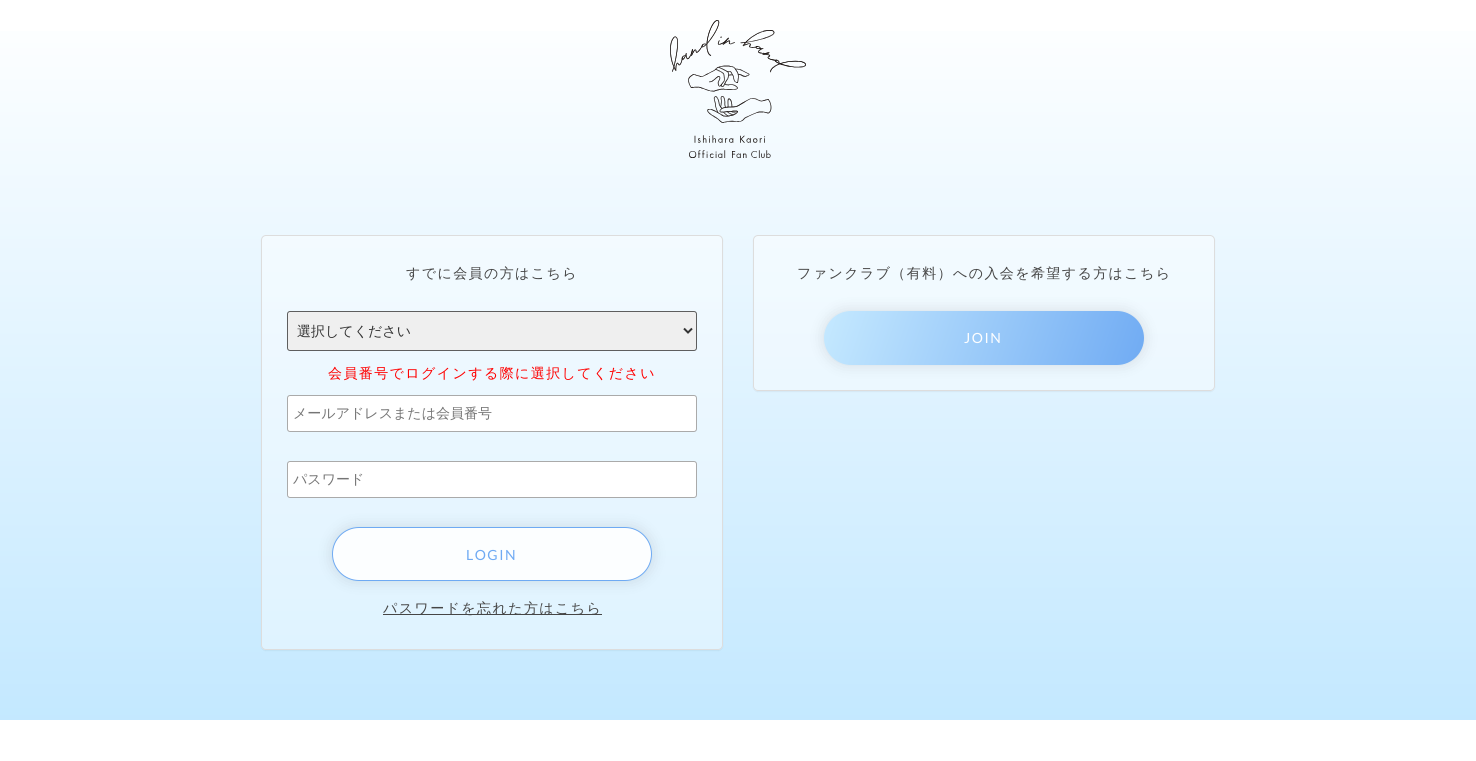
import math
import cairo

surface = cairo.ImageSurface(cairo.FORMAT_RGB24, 1476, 761)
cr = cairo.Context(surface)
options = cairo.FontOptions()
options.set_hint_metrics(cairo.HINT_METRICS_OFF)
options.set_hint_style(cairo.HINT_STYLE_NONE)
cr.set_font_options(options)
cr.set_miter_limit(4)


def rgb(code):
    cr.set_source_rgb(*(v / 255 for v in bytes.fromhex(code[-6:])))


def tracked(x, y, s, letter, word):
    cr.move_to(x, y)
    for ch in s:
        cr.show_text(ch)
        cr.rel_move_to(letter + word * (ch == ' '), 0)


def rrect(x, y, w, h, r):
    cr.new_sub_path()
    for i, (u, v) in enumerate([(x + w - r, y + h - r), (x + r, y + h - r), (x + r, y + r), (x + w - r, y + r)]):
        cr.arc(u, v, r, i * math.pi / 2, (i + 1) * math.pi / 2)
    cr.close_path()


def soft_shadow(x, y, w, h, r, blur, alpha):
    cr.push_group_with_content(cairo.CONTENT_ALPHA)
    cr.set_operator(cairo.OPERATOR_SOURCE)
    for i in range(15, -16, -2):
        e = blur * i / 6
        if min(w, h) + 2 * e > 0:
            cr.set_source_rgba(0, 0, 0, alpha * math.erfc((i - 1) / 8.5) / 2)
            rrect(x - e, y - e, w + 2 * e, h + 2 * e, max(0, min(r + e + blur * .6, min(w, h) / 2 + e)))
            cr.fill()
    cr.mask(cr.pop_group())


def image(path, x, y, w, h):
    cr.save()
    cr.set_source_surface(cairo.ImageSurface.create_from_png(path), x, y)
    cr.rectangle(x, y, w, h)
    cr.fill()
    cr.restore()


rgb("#ffffff")
cr.paint()
gradient = cairo.LinearGradient(738, 0.3, 738, 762)
gradient.add_color_stop_rgba(0, 1, 1, 1, 1)
gradient.add_color_stop_rgba(1, 0.753, 0.906, 1, 1)
cr.set_source(gradient)
cr.rectangle(0, 31, 1476, 689)
cr.fill()
image("img/1.png", 670, 20, 136, 138)
cr.save()
cr.set_fill_rule(cairo.FILL_RULE_EVEN_ODD)
cr.new_path()
cr.move_to(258, 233)
cr.line_to(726, 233)
cr.line_to(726, 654)
cr.line_to(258, 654)
cr.close_path()
cr.move_to(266, 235)
cr.line_to(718, 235)
cr.curve_to(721, 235, 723, 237, 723, 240)
cr.line_to(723, 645)
cr.curve_to(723, 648, 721, 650, 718, 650)
cr.line_to(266, 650)
cr.curve_to(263, 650, 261, 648, 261, 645)
cr.line_to(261, 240)
cr.curve_to(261, 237, 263, 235, 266, 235)
cr.close_path()
cr.clip()
rgb("#000000")
soft_shadow(261, 236, 462, 415, 5, 0.5, 0.05)
cr.restore()
cr.set_source_rgba(1, 1, 1, 0.4)
rrect(261.5, 235.5, 461, 414, 4.5)
cr.fill_preserve()
rgb("#dddddd")
cr.set_line_width(1)
cr.stroke()
rgb("#efefef")
rrect(287.5, 311.5, 409, 39, 2.5)
cr.fill_preserve()
rgb("#5e5e5e")
cr.stroke()
cr.new_path()
cr.move_to(684, 328.5)
cr.line_to(688, 332.5)
cr.line_to(692, 328.5)
rgb("#333333")
cr.set_line_width(2)
cr.stroke()
rgb("#ffffff")
rrect(287.5, 395.5, 409, 36, 2.5)
cr.fill_preserve()
rgb("#aaaaaa")
cr.set_line_width(1)
cr.stroke()
rgb("#ffffff")
rrect(287.5, 461.5, 409, 36, 2.5)
cr.fill_preserve()
rgb("#aaaaaa")
cr.stroke()
rgb("#000000")
soft_shadow(332, 527, 320, 54, 27, 7.5, 0.11)
rgb("#fcfeff")
rrect(332.5, 527.5, 319, 53, 26.5)
cr.fill_preserve()
rgb("#6faaf3")
cr.stroke()
rgb("#464646")
cr.rectangle(383, 614, 219, 1)
cr.fill()
cr.save()
cr.set_fill_rule(cairo.FILL_RULE_EVEN_ODD)
cr.new_path()
cr.move_to(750, 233)
cr.line_to(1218, 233)
cr.line_to(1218, 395)
cr.line_to(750, 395)
cr.close_path()
cr.move_to(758, 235)
cr.line_to(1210, 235)
cr.curve_to(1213, 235, 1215, 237, 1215, 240)
cr.line_to(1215, 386)
cr.curve_to(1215, 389, 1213, 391, 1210, 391)
cr.line_to(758, 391)
cr.curve_to(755, 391, 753, 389, 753, 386)
cr.line_to(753, 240)
cr.curve_to(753, 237, 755, 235, 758, 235)
cr.close_path()
cr.clip()
rgb("#000000")
soft_shadow(753, 236, 462, 156, 5, 0.5, 0.05)
cr.restore()
cr.set_source_rgba(1, 1, 1, 0.4)
rrect(753.5, 235.5, 461, 155, 4.5)
cr.fill_preserve()
rgb("#dddddd")
cr.stroke()
rgb("#000000")
soft_shadow(824, 311, 320, 54, 27, 7.5, 0.11)
gradient = cairo.LinearGradient(833, 286, 1135, 390)
gradient.add_color_stop_rgba(0, 0.773, 0.914, 1, 1)
gradient.add_color_stop_rgba(1, 0.439, 0.671, 0.953, 1)
cr.set_source(gradient)
rrect(824, 311, 320, 54, 27)
cr.fill()
cr.select_font_face("WenQuanYi Zen Hei Medium")
cr.set_font_size(14)
rgb("#464646")
tracked(406, 278, "すでに会員の方はこちら", 1.4, 0)
rgb("#333333")
cr.move_to(297, 336)
cr.show_text("選択してください")
rgb("#ff0000")
tracked(328, 378, "会員番号でログインする際に選択してください", 1.4, 0)
rgb("#757575")
cr.move_to(293, 418)
cr.show_text("メールアドレスまたは会員番号")
cr.move_to(293, 484)
cr.show_text("パスワード")
cr.select_font_face("Lato")
rgb("#6faaf3")
tracked(466, 560, "LOGIN", 1.5, 0)
cr.select_font_face("WenQuanYi Zen Hei Medium")
rgb("#464646")
tracked(383, 613, "パスワードを忘れた方はこちら", 1.4, 0)
tracked(797, 278, "ファンクラブ（有料）への入会を希望する方はこちら", 1.4, 0)
cr.select_font_face("Lato")
rgb("#fdfeff")
tracked(964, 343, "JOIN", 1.5, 0)
surface.write_to_png("page.png")
